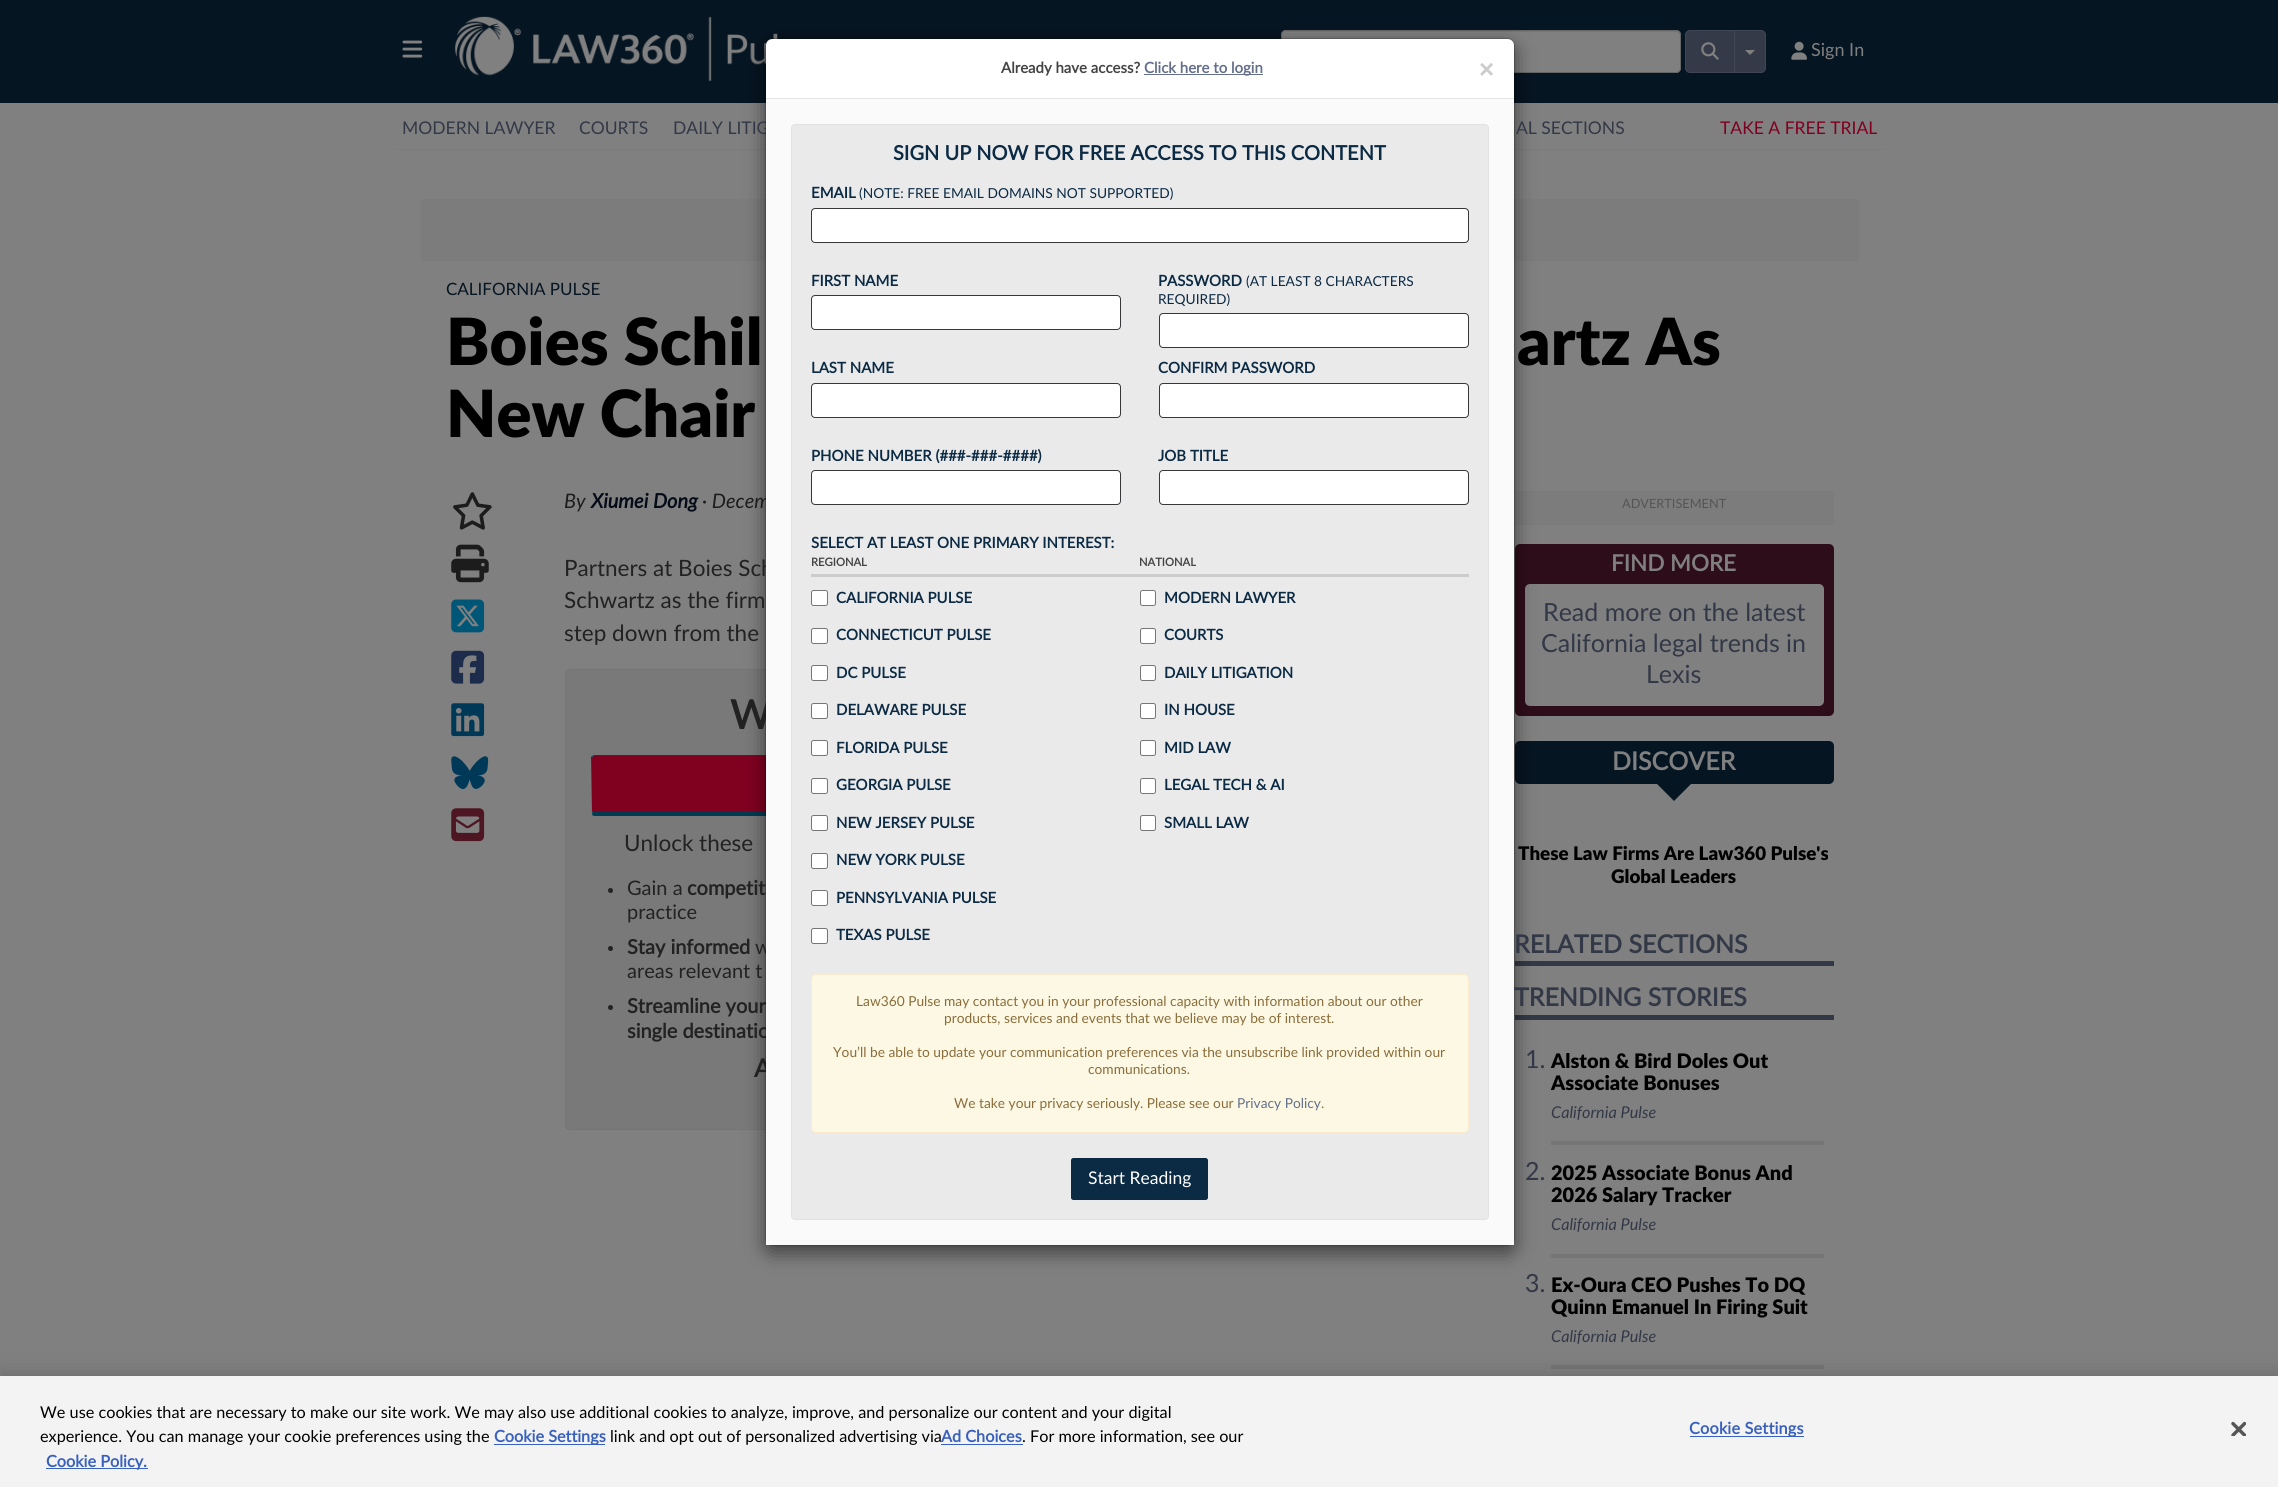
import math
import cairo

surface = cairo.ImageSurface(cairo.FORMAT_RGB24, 2278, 1487)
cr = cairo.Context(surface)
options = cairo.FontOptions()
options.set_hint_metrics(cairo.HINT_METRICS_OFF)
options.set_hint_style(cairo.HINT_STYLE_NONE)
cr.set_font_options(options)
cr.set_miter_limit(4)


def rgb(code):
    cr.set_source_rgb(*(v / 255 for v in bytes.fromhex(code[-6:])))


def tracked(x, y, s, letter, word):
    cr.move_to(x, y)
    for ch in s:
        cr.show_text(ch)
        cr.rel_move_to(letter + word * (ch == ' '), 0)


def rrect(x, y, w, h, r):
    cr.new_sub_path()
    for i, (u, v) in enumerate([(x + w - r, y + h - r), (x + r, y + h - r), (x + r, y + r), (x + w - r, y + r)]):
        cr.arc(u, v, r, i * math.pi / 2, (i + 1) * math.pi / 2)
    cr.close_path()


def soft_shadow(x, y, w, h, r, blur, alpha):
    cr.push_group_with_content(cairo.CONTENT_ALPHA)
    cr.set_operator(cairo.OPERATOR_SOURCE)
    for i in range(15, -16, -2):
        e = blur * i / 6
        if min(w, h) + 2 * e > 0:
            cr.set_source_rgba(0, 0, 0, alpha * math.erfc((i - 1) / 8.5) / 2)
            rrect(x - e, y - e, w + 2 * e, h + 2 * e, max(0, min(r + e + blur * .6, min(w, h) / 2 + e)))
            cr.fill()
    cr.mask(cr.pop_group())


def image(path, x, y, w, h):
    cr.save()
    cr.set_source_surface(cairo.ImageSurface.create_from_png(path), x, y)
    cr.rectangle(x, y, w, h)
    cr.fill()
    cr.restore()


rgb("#808080")
cr.paint()
rgb("#061522")
cr.rectangle(0, 0, 2278, 103)
cr.fill()
image("img/1.png", 402, 40, 21, 18)
image("img/2.png", 454, 16, 324, 65)
rgb("#808080")
rrect(1281, 30, 400, 43, 5)
cr.fill()
rgb("#767676")
cr.new_path()
cr.move_to(1286, 32)
cr.line_to(1676, 32)
cr.curve_to(1678, 32, 1680, 34, 1680, 36)
cr.line_to(1680, 35)
cr.curve_to(1680, 33, 1678, 31, 1676, 31)
cr.line_to(1287, 31)
cr.curve_to(1286, 31, 1284, 32, 1284, 33)
cr.close_path()
cr.fill()
rrect(1281.5, 30.5, 399, 42, 4.5)
rgb("#666666")
cr.set_line_width(1)
cr.stroke()
rgb("#353a49")
cr.new_path()
cr.move_to(1690, 30.5)
cr.line_to(1734.5, 30.5)
cr.line_to(1734.5, 72.5)
cr.line_to(1690, 72.5)
cr.curve_to(1687.5, 72.5, 1685.5, 70.5, 1685.5, 68)
cr.line_to(1685.5, 35)
cr.curve_to(1685.5, 32.5, 1687.5, 30.5, 1690, 30.5)
cr.close_path()
cr.fill_preserve()
rgb("#404656")
cr.stroke()
image("img/3.png", 1701, 42, 18, 18)
rgb("#353a49")
cr.new_path()
cr.move_to(1734.5, 30.5)
cr.line_to(1761, 30.5)
cr.curve_to(1763.5, 30.5, 1765.5, 32.5, 1765.5, 35)
cr.line_to(1765.5, 68)
cr.curve_to(1765.5, 70.5, 1763.5, 72.5, 1761, 72.5)
cr.line_to(1734.5, 72.5)
cr.close_path()
cr.fill_preserve()
rgb("#404656")
cr.stroke()
rgb("#808080")
cr.new_path()
cr.move_to(1745, 50)
cr.line_to(1755, 50)
cr.line_to(1750, 55)
cr.close_path()
cr.fill()
image("img/4.png", 1791, 41, 16, 19)
rgb("#7b7b7b")
cr.rectangle(396, 149, 1488, 1)
cr.fill()
rgb("#7c7c7c")
cr.rectangle(421, 199, 1438, 62)
cr.fill()
rgb("#797979")
rrect(565.5, 669.5, 799, 460, 4.5)
cr.fill_preserve()
rgb("#757575")
cr.stroke()
rgb("#800020")
cr.new_path()
cr.move_to(594, 756)
cr.line_to(1336, 756)
cr.curve_to(1337, 756, 1338, 757, 1338, 758)
cr.line_to(1338, 811)
cr.line_to(592, 811)
cr.line_to(592, 758)
cr.curve_to(592, 757, 593, 756, 594, 756)
cr.close_path()
cr.fill()
rgb("#003f58")
cr.new_path()
cr.move_to(594, 755)
cr.line_to(592, 756)
cr.line_to(593, 757)
cr.line_to(594, 756)
cr.line_to(1336, 756)
cr.line_to(1337, 757)
cr.line_to(1338, 756)
cr.line_to(1336, 755)
cr.close_path()
cr.fill()
rgb("#003b52")
cr.new_path()
cr.move_to(1338, 815)
cr.line_to(1336, 816)
cr.line_to(594, 816)
cr.line_to(592, 815)
cr.line_to(593, 811)
cr.line_to(1337, 811)
cr.close_path()
cr.fill()
rgb("#7c7c7c")
cr.rectangle(1515, 491, 319, 34)
cr.fill()
rgb("#2e0d1a")
rrect(1515, 544, 319, 172, 5)
cr.fill()
rgb("#808080")
rrect(1525, 584, 299, 122, 5)
cr.fill()
rgb("#061522")
rrect(1515, 741, 319, 43, 5)
cr.fill()
rgb("#323846")
cr.rectangle(1515, 961, 319, 5)
cr.fill()
cr.rectangle(1515, 1015, 319, 5)
cr.fill()
rgb("#000000")
soft_shadow(765, 44, 750, 1209, 8, 9.5, 0.5)
image("img/5.png", 453, 492, 39, 38)
image("img/6.png", 451, 544, 38, 39)
image("img/7.png", 451, 599, 34, 34)
image("img/8.png", 451, 650, 34, 34)
image("img/9.png", 451, 703, 34, 34)
image("img/10.png", 451, 756, 38, 34)
image("img/11.png", 451, 808, 34, 34)
rgb("#003f58")
cr.new_path()
cr.move_to(591, 757)
cr.line_to(592, 756)
cr.line_to(593, 757)
cr.line_to(592, 758)
cr.line_to(592, 811)
cr.line_to(593, 811)
cr.line_to(592, 815)
cr.close_path()
cr.fill()
rgb("#222222")
cr.arc(610.5, 890.5, 2.5, 0, 2 * math.pi)
cr.fill()
cr.arc(610.5, 948.5, 2.5, 0, 2 * math.pi)
cr.fill()
cr.arc(610.5, 1007.5, 2.5, 0, 2 * math.pi)
cr.fill()
rgb("#061522")
cr.new_path()
cr.move_to(1649, 776)
cr.line_to(1699, 776)
cr.line_to(1674, 801)
cr.close_path()
cr.fill()
for x, y, w, h, color in [
    (1551, 1141, 273, 4, "#757575"),
    (1551, 1254, 273, 4, "#757575"),
    (1551, 1365, 273, 4, "#757575"),
]:
    rgb(color)
    cr.rectangle(x, y, w, h)
    cr.fill()
rgb("#000000")
soft_shadow(0, 1376, 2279, 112, 0, 11, 0.2)
for x, y, w, h, color in [
    (0, 1376, 2278, 111, "#f3f3f3"),
    (494, 1444, 111, 1, "#3860be"),
    (941, 1444, 82, 1, "#3860be"),
    (46, 1468, 102, 1, "#3860be"),
    (1690, 1436, 114, 1, "#3860be"),
]:
    rgb(color)
    cr.rectangle(x, y, w, h)
    cr.fill()
image("img/12.png", 2231, 1421, 15, 15)
cr.select_font_face("Lato")
cr.set_font_size(18)
rgb("#808080")
cr.move_to(1811, 56)
cr.show_text("Sign In")
cr.set_font_size(17.5)
rgb("#323846")
for x, y, s in [
    (402, 134, "MODERN LAWYER"),
    (579, 134, "COURTS"),
    (673, 134, "DAILY LITIG"),
    (1516, 134, "AL SECTIONS"),
]:
    cr.move_to(x, y)
    cr.show_text(s)
rgb("#800020")
cr.move_to(1720, 134)
cr.show_text("TAKE A FREE TRIAL")
cr.set_font_size(17)
rgb("#061522")
cr.move_to(446, 295)
cr.show_text("CALIFORNIA PULSE")
cr.select_font_face("Lato Black")
cr.set_font_size(65)
rgb("#000000")
for x, y, s in [
    (446, 365, "Boies Schil"),
    (1517, 365, "artz As"),
    (446, 437, "New Chair"),
]:
    cr.move_to(x, y)
    cr.show_text(s)
cr.select_font_face("Lato", cairo.FONT_SLANT_ITALIC)
cr.set_font_size(20)
rgb("#1c1c1d")
cr.move_to(564, 508)
cr.show_text("By")
cr.select_font_face("Lato", cairo.FONT_SLANT_ITALIC, cairo.FONT_WEIGHT_BOLD)
rgb("#040b17")
cr.move_to(591, 508)
cr.show_text("Xiumei Dong")
cr.select_font_face("Lato", cairo.FONT_SLANT_ITALIC)
rgb("#1c1c1d")
cr.move_to(702, 508)
cr.show_text("· Decem")
cr.select_font_face("Lato")
cr.set_font_size(22.5)
rgb("#222222")
for x, y, s in [
    (564, 576, "Partners at Boies Sch"),
    (564, 608, "Schwartz as the firm"),
    (564, 641, "step down from the"),
]:
    cr.move_to(x, y)
    cr.show_text(s)
cr.select_font_face("Lato", cairo.FONT_SLANT_NORMAL, cairo.FONT_WEIGHT_BOLD)
cr.set_font_size(40)
cr.move_to(730, 729)
cr.show_text("W")
cr.select_font_face("Lato")
cr.set_font_size(22.5)
cr.move_to(624, 851)
cr.show_text("Unlock these")
cr.set_font_size(20)
cr.move_to(627, 895)
cr.show_text("Gain a")
cr.select_font_face("Lato", cairo.FONT_SLANT_NORMAL, cairo.FONT_WEIGHT_BOLD)
cr.move_to(687, 895)
cr.show_text("competit")
cr.select_font_face("Lato")
cr.move_to(627, 919)
cr.show_text("practice")
cr.select_font_face("Lato", cairo.FONT_SLANT_NORMAL, cairo.FONT_WEIGHT_BOLD)
cr.move_to(627, 954)
cr.show_text("Stay informed")
cr.select_font_face("Lato")
cr.move_to(755, 954)
cr.show_text("w")
cr.move_to(627, 978)
cr.show_text("areas relevant t")
cr.select_font_face("Lato", cairo.FONT_SLANT_NORMAL, cairo.FONT_WEIGHT_BOLD)
cr.move_to(627, 1013)
cr.show_text("Streamline your")
cr.move_to(627, 1038)
cr.show_text("single destinatio")
cr.set_font_size(25)
cr.move_to(754, 1077)
cr.show_text("A")
rgb("#ffffff")
rrect(766, 39, 748, 1206, 6)
cr.fill()
cr.select_font_face("Lato")
cr.set_font_size(12.75)
rgb("#555555")
cr.move_to(1622, 508)
cr.show_text("ADVERTISEMENT")
cr.select_font_face("Lato", cairo.FONT_SLANT_NORMAL, cairo.FONT_WEIGHT_BOLD)
cr.set_font_size(22.5)
rgb("#808080")
cr.move_to(1611, 571)
cr.show_text("FIND MORE")
cr.select_font_face("Lato")
cr.set_font_size(25)
rgb("#323846")
for x, y, s in [
    (1543, 621, "Read more on the latest"),
    (1541, 652, "California legal trends in"),
    (1646, 683, "Lexis"),
]:
    cr.move_to(x, y)
    cr.show_text(s)
cr.select_font_face("Lato", cairo.FONT_SLANT_NORMAL, cairo.FONT_WEIGHT_BOLD)
rgb("#808080")
cr.move_to(1612, 770)
cr.show_text("DISCOVER")
cr.select_font_face("Lato Black")
cr.set_font_size(18.75)
rgb("#000000")
cr.move_to(1518, 860)
cr.show_text("These Law Firms Are Law360 Pulse's")
cr.move_to(1611, 883)
cr.show_text("Global Leaders")
cr.select_font_face("Lato", cairo.FONT_SLANT_NORMAL, cairo.FONT_WEIGHT_BOLD)
cr.set_font_size(25)
rgb("#323846")
cr.move_to(1514, 953)
cr.show_text("RELATED SECTIONS")
cr.move_to(1514, 1006)
cr.show_text("TRENDING STORIES")
rrect(765.5, 38.5, 749, 1207, 7.5)
cr.set_source_rgba(0, 0, 0, 0.2)
cr.stroke()
rgb("#fafafa")
cr.rectangle(766, 99, 748, 1146)
cr.fill()
rgb("#eaeaea")
rrect(791.5, 124.5, 697, 1095, 3.5)
cr.fill_preserve()
rgb("#e1e1e1")
cr.stroke()
cr.set_font_size(15)
rgb("#0b2a44")
for x, y, s in [
    (811, 548, "SELECT AT LEAST ONE PRIMARY INTEREST:"),
    (1164, 828, "SMALL LAW"),
    (1164, 790, "LEGAL TECH & AI"),
    (1164, 753, "MID LAW"),
    (1164, 715, "IN HOUSE"),
    (1164, 678, "DAILY LITIGATION"),
    (1164, 640, "COURTS"),
    (1164, 603, "MODERN LAWYER"),
]:
    cr.move_to(x, y)
    cr.show_text(s)
cr.set_font_size(11.25)
rgb("#444444")
cr.move_to(1139, 566)
cr.show_text("NATIONAL")
rgb("#ffffff")
rrect(1140.5, 815.5, 15, 15, 2)
cr.fill_preserve()
rgb("#767676")
cr.stroke()
rgb("#ffffff")
rrect(1140.5, 778.5, 15, 15, 2)
cr.fill_preserve()
rgb("#767676")
cr.stroke()
rgb("#ffffff")
rrect(1140.5, 740.5, 15, 15, 2)
cr.fill_preserve()
rgb("#767676")
cr.stroke()
rgb("#ffffff")
rrect(1140.5, 703.5, 15, 15, 2)
cr.fill_preserve()
rgb("#767676")
cr.stroke()
rgb("#ffffff")
rrect(1140.5, 665.5, 15, 15, 2)
cr.fill_preserve()
rgb("#767676")
cr.stroke()
rgb("#ffffff")
rrect(1140.5, 628.5, 15, 15, 2)
cr.fill_preserve()
rgb("#767676")
cr.stroke()
rgb("#ffffff")
rrect(1140.5, 590.5, 15, 15, 2)
cr.fill_preserve()
rgb("#767676")
cr.stroke()
cr.set_font_size(15)
rgb("#0b2a44")
for x, y, s in [
    (836, 940, "TEXAS PULSE"),
    (836, 903, "PENNSYLVANIA PULSE"),
    (836, 865, "NEW YORK PULSE"),
    (836, 828, "NEW JERSEY PULSE"),
    (836, 790, "GEORGIA PULSE"),
    (836, 753, "FLORIDA PULSE"),
    (836, 715, "DELAWARE PULSE"),
    (836, 678, "DC PULSE"),
    (836, 640, "CONNECTICUT PULSE"),
    (836, 603, "CALIFORNIA PULSE"),
]:
    cr.move_to(x, y)
    cr.show_text(s)
cr.set_font_size(11.25)
rgb("#444444")
cr.move_to(811, 566)
cr.show_text("REGIONAL")
rgb("#ffffff")
rrect(811.5, 928.5, 16, 15, 2)
cr.fill_preserve()
rgb("#767676")
cr.stroke()
rgb("#ffffff")
rrect(811.5, 890.5, 16, 15, 2)
cr.fill_preserve()
rgb("#767676")
cr.stroke()
rgb("#ffffff")
rrect(811.5, 853.5, 16, 15, 2)
cr.fill_preserve()
rgb("#767676")
cr.stroke()
rgb("#ffffff")
rrect(811.5, 815.5, 16, 15, 2)
cr.fill_preserve()
rgb("#767676")
cr.stroke()
rgb("#ffffff")
rrect(811.5, 778.5, 16, 15, 2)
cr.fill_preserve()
rgb("#767676")
cr.stroke()
rgb("#ffffff")
rrect(811.5, 740.5, 16, 15, 2)
cr.fill_preserve()
rgb("#767676")
cr.stroke()
rgb("#ffffff")
rrect(811.5, 703.5, 16, 15, 2)
cr.fill_preserve()
rgb("#767676")
cr.stroke()
rgb("#ffffff")
rrect(811.5, 665.5, 16, 15, 2)
cr.fill_preserve()
rgb("#767676")
cr.stroke()
rgb("#ffffff")
rrect(811.5, 628.5, 16, 15, 2)
cr.fill_preserve()
rgb("#767676")
cr.stroke()
rgb("#ffffff")
rrect(811.5, 590.5, 16, 15, 2)
cr.fill_preserve()
rgb("#767676")
cr.stroke()
rgb("#cccccc")
cr.rectangle(811, 574, 658, 3)
cr.fill()
rgb("#ffffff")
rrect(1159.5, 470.5, 309, 34, 3.5)
cr.fill_preserve()
rgb("#373739")
cr.stroke()
cr.set_font_size(15)
rgb("#0b2a44")
cr.move_to(1158, 461)
cr.show_text("JOB TITLE")
rgb("#ffffff")
rrect(1159.5, 383.5, 309, 34, 3.5)
cr.fill_preserve()
rgb("#373739")
cr.stroke()
rgb("#0b2a44")
cr.move_to(1158, 373)
cr.show_text("CONFIRM PASSWORD")
rgb("#ffffff")
rrect(1159.5, 313.5, 309, 34, 3.5)
cr.fill_preserve()
rgb("#373739")
cr.stroke()
cr.select_font_face("Lato")
cr.set_font_size(13.75)
rgb("#0b2a44")
cr.move_to(1158, 304)
cr.show_text("REQUIRED)")
cr.move_to(1246, 286)
cr.show_text("(AT LEAST 8 CHARACTERS")
cr.select_font_face("Lato", cairo.FONT_SLANT_NORMAL, cairo.FONT_WEIGHT_BOLD)
cr.set_font_size(15)
cr.move_to(1158, 286)
cr.show_text("PASSWORD")
rgb("#ffffff")
rrect(811.5, 470.5, 309, 34, 3.5)
cr.fill_preserve()
rgb("#373739")
cr.stroke()
rgb("#0b2a44")
cr.move_to(811, 461)
cr.show_text("PHONE NUMBER (###-###-####)")
rgb("#ffffff")
rrect(811.5, 383.5, 309, 34, 3.5)
cr.fill_preserve()
rgb("#373739")
cr.stroke()
rgb("#0b2a44")
cr.move_to(811, 373)
cr.show_text("LAST NAME")
rgb("#ffffff")
rrect(811.5, 295.5, 309, 34, 3.5)
cr.fill_preserve()
rgb("#373739")
cr.stroke()
rgb("#0b2a44")
cr.move_to(811, 286)
cr.show_text("FIRST NAME")
rgb("#ffffff")
rrect(811.5, 208.5, 657, 34, 3.5)
cr.fill_preserve()
rgb("#373739")
cr.stroke()
cr.select_font_face("Lato")
cr.set_font_size(13.75)
rgb("#0b2a44")
cr.move_to(859, 198)
cr.show_text("(NOTE: FREE EMAIL DOMAINS NOT SUPPORTED)")
cr.select_font_face("Lato", cairo.FONT_SLANT_NORMAL, cairo.FONT_WEIGHT_BOLD)
cr.set_font_size(15)
cr.move_to(811, 198)
cr.show_text("EMAIL")
rrect(1071.5, 1158.5, 136, 41, 2)
cr.fill_preserve()
cr.stroke()
cr.select_font_face("Lato")
cr.set_font_size(17.5)
rgb("#ffffff")
cr.move_to(1088, 1184)
cr.show_text("Start Reading")
rgb("#fcf8e3")
rrect(811.5, 974.5, 657, 158, 4.5)
cr.fill_preserve()
rgb("#faebcc")
cr.stroke()
cr.set_font_size(13.75)
rgb("#8a6d3b")
cr.move_to(1321, 1108)
cr.show_text(".")
rgb("#646f8c")
cr.move_to(1237, 1108)
cr.show_text("Privacy Policy")
rgb("#8a6d3b")
for x, y, s in [
    (954, 1108, "We take your privacy seriously. Please see our"),
    (1088, 1074, "communications."),
    (833, 1057, "You’ll be able to update your communication preferences via the unsubscribe link provided within our"),
    (944, 1023, "products, services and events that we believe may be of interest."),
    (856, 1006, "Law360 Pulse may contact you in your professional capacity with information about our other"),
]:
    cr.move_to(x, y)
    cr.show_text(s)
cr.select_font_face("Lato", cairo.FONT_SLANT_NORMAL, cairo.FONT_WEIGHT_BOLD)
cr.set_font_size(20)
rgb("#0b2a44")
cr.move_to(893, 160)
cr.show_text("SIGN UP NOW FOR FREE ACCESS TO THIS CONTENT")
cr.select_font_face("Liberation Sans", cairo.FONT_SLANT_NORMAL, cairo.FONT_WEIGHT_BOLD)
cr.set_font_size(26)
rgb("#cccccc")
cr.move_to(1479, 78)
cr.show_text("×")
rgb("#646f8c")
cr.rectangle(1144, 74, 119, 1)
cr.fill()
cr.select_font_face("Lato", cairo.FONT_SLANT_NORMAL, cairo.FONT_WEIGHT_BOLD)
cr.set_font_size(15)
cr.move_to(1144, 73)
cr.show_text("Click here to login")
rgb("#444444")
cr.move_to(1001, 73)
cr.show_text("Already have access?")
rgb("#e5e5e5")
cr.rectangle(766, 98, 748, 1)
cr.fill()
cr.select_font_face("Lato")
cr.set_font_size(25)
rgb("#323846")
cr.move_to(1525, 1068)
cr.show_text("1.")
cr.select_font_face("Lato Black")
cr.set_font_size(20)
rgb("#000000")
cr.move_to(1551, 1068)
cr.show_text("Alston & Bird Doles Out")
cr.move_to(1551, 1090)
cr.show_text("Associate Bonuses")
cr.select_font_face("Lato", cairo.FONT_SLANT_ITALIC)
cr.set_font_size(16.25)
rgb("#323846")
cr.move_to(1551, 1118)
cr.show_text("California Pulse")
cr.select_font_face("Lato")
cr.set_font_size(25)
cr.move_to(1525, 1180)
cr.show_text("2.")
cr.select_font_face("Lato Black")
cr.set_font_size(20)
rgb("#000000")
cr.move_to(1551, 1180)
cr.show_text("2025 Associate Bonus And")
cr.move_to(1551, 1202)
cr.show_text("2026 Salary Tracker")
cr.select_font_face("Lato", cairo.FONT_SLANT_ITALIC)
cr.set_font_size(16.25)
rgb("#323846")
cr.move_to(1551, 1230)
cr.show_text("California Pulse")
cr.select_font_face("Lato")
cr.set_font_size(25)
cr.move_to(1525, 1292)
cr.show_text("3.")
cr.select_font_face("Lato Black")
cr.set_font_size(20)
rgb("#000000")
cr.move_to(1551, 1292)
cr.show_text("Ex-Oura CEO Pushes To DQ")
cr.move_to(1551, 1314)
cr.show_text("Quinn Emanuel In Firing Suit")
cr.select_font_face("Lato", cairo.FONT_SLANT_ITALIC)
cr.set_font_size(16.25)
rgb("#323846")
cr.move_to(1551, 1342)
cr.show_text("California Pulse")
cr.select_font_face("Lato")
rgb("#000000")
cr.move_to(40, 1418)
cr.show_text("We use cookies that are necessary to make our site work. We may also use additional cookies to analyze, improve, and personalize our content and your digital")
cr.move_to(40, 1442)
cr.show_text("experience. You can manage your cookie preferences using the")
cr.select_font_face("Lato", cairo.FONT_SLANT_NORMAL, cairo.FONT_WEIGHT_BOLD)
rgb("#3860be")
cr.move_to(494, 1442)
cr.show_text("Cookie Settings")
cr.select_font_face("Lato")
rgb("#000000")
cr.move_to(610, 1442)
cr.show_text("link and opt out of personalized advertising via")
cr.select_font_face("Lato", cairo.FONT_SLANT_NORMAL, cairo.FONT_WEIGHT_BOLD)
rgb("#3860be")
cr.move_to(941, 1442)
cr.show_text("Ad Choices")
cr.select_font_face("Lato")
rgb("#000000")
cr.move_to(1022, 1442)
cr.show_text(". For more information, see our")
cr.select_font_face("Lato", cairo.FONT_SLANT_NORMAL, cairo.FONT_WEIGHT_BOLD)
rgb("#3860be")
cr.move_to(46, 1467)
cr.show_text("Cookie Policy.")
tracked(1689, 1434, "Cookie Settings", 0.2, 0)
surface.write_to_png("page.png")
